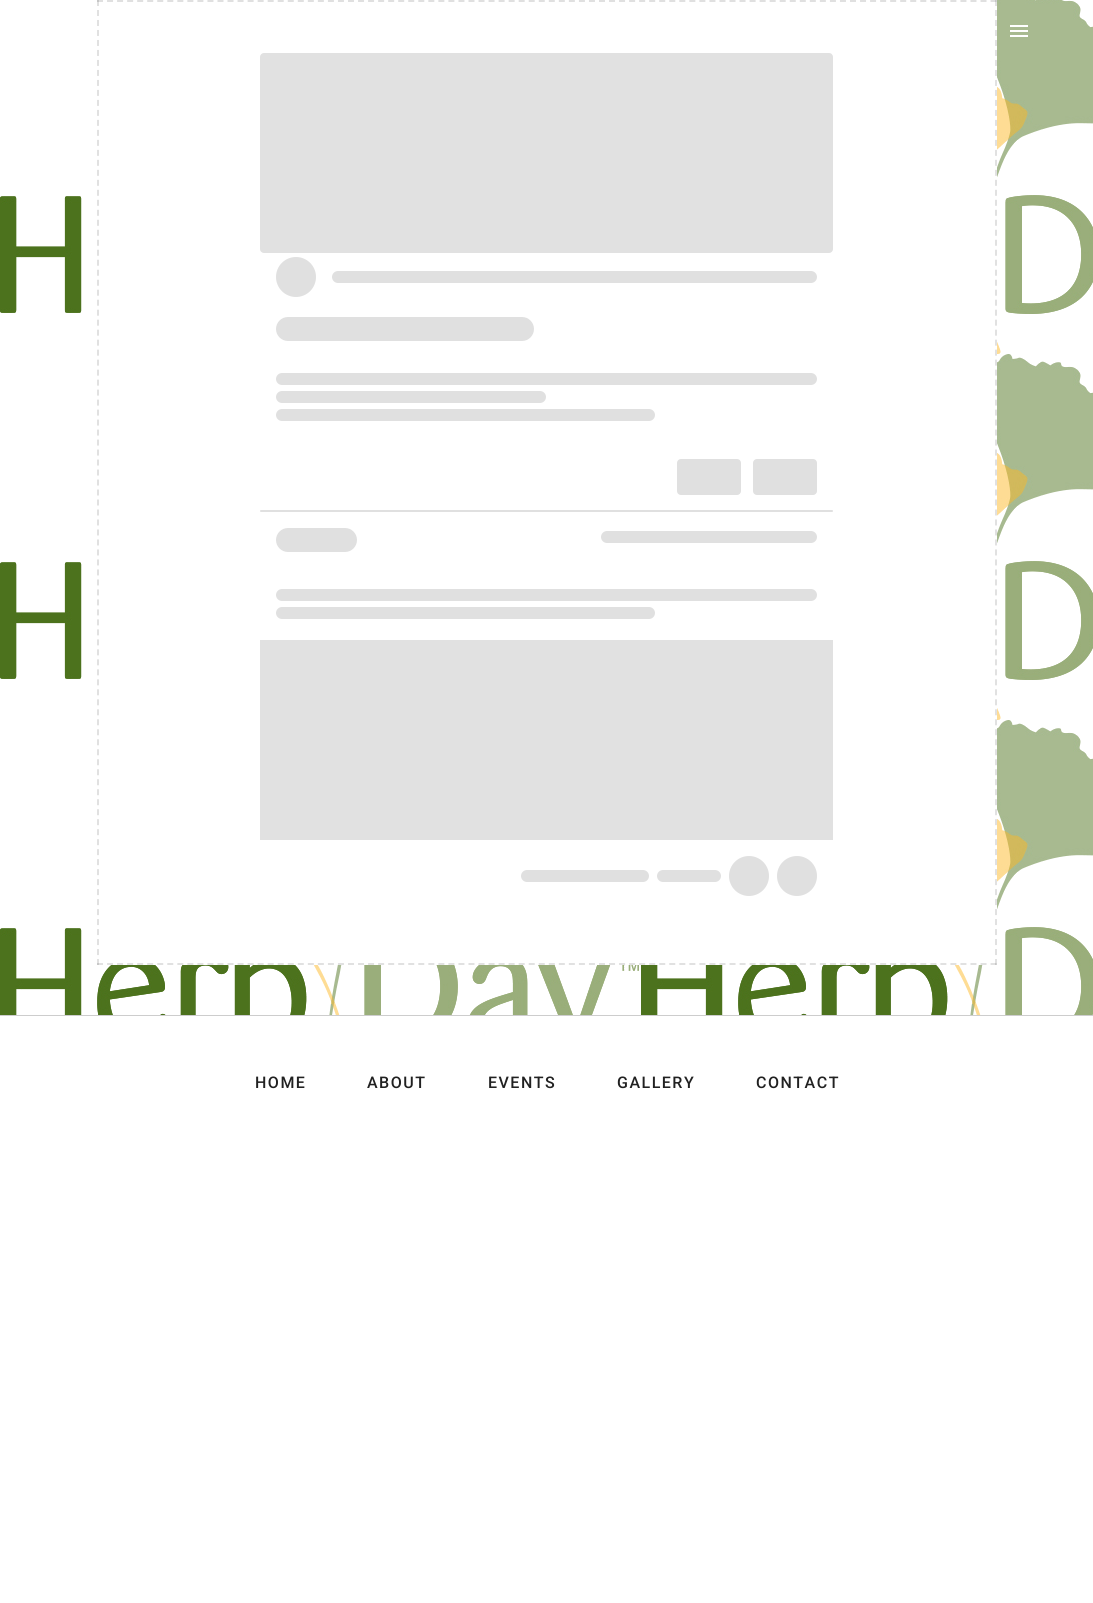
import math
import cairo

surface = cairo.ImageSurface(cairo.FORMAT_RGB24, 1093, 1603)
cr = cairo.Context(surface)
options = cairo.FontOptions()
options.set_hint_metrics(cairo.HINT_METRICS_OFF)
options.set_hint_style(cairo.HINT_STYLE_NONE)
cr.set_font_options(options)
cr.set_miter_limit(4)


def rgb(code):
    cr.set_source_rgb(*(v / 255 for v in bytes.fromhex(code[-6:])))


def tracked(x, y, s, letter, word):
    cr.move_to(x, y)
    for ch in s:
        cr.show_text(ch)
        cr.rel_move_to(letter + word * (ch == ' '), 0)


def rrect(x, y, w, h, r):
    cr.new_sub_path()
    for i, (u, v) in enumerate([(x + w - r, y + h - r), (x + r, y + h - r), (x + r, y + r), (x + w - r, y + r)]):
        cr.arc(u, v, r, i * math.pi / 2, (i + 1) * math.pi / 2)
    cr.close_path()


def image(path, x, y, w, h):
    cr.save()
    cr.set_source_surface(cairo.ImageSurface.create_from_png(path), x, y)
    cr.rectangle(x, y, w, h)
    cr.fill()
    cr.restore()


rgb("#ffffff")
cr.paint()
image("img/2.png", 0, 0, 1093, 1015)
image("img/1.png", 1010, 25, 18, 12)
rgb("#ffffff")
cr.rectangle(97, 0, 900, 965)
cr.fill()
cr.new_path()
cr.move_to(97, 1)
cr.line_to(997, 1)
rgb("#e0e0e0")
cr.set_dash([6, 4.04])
cr.stroke()
cr.new_path()
cr.move_to(996, 0)
cr.line_to(996, 965)
cr.set_source_rgba(0, 0, 0, 0.12)
cr.set_dash([6, 3.99])
cr.stroke()
cr.new_path()
cr.move_to(97, 964)
cr.line_to(997, 964)
cr.set_dash([6, 4.04])
cr.stroke()
cr.new_path()
cr.move_to(98, 0)
cr.line_to(98, 965)
cr.set_dash([6, 3.99])
cr.stroke()
rgb("#e1e1e1")
rrect(260, 53, 573, 200, 4)
cr.fill()
rgb("#e0e0e0")
cr.arc(296, 277, 20, 0, 2 * math.pi)
cr.fill()
rrect(332, 271, 485, 12, 6)
cr.fill()
rrect(276, 317, 258, 24, 12)
cr.fill()
rrect(276, 373, 541, 12, 6)
cr.fill()
rrect(276, 391, 270, 12, 6)
cr.fill()
rrect(276, 409, 379, 12, 6)
cr.fill()
rrect(677, 459, 64, 36, 4)
cr.fill()
rrect(753, 459, 64, 36, 4)
cr.fill()
rrect(260, 510, 573, 2, 1)
cr.fill()
rrect(276, 528, 81, 24, 12)
cr.fill()
rrect(601, 531, 216, 12, 6)
cr.fill()
rrect(276, 589, 541, 12, 6)
cr.fill()
rrect(276, 607, 379, 12, 6)
cr.fill()
rgb("#e1e1e1")
cr.rectangle(260, 640, 573, 200)
cr.fill()
rgb("#e0e0e0")
rrect(521, 870, 128, 12, 6)
cr.fill()
rrect(657, 870, 64, 12, 6)
cr.fill()
cr.arc(749, 876, 20, 0, 2 * math.pi)
cr.fill()
cr.arc(797, 876, 20, 0, 2 * math.pi)
cr.fill()
rgb("#cdcdcd")
cr.rectangle(0, 1015, 1093, 1)
cr.fill()
cr.select_font_face("Roboto Medium")
cr.set_font_size(16)
rgb("#212121")
for x, y, s in [
    (255, 1088, "HOME"),
    (367, 1088, "ABOUT"),
    (488, 1088, "EVENTS"),
    (617, 1088, "GALLERY"),
    (756, 1088, "CONTACT"),
]:
    tracked(x, y, s, 1.5, 0)
surface.write_to_png("page.png")
